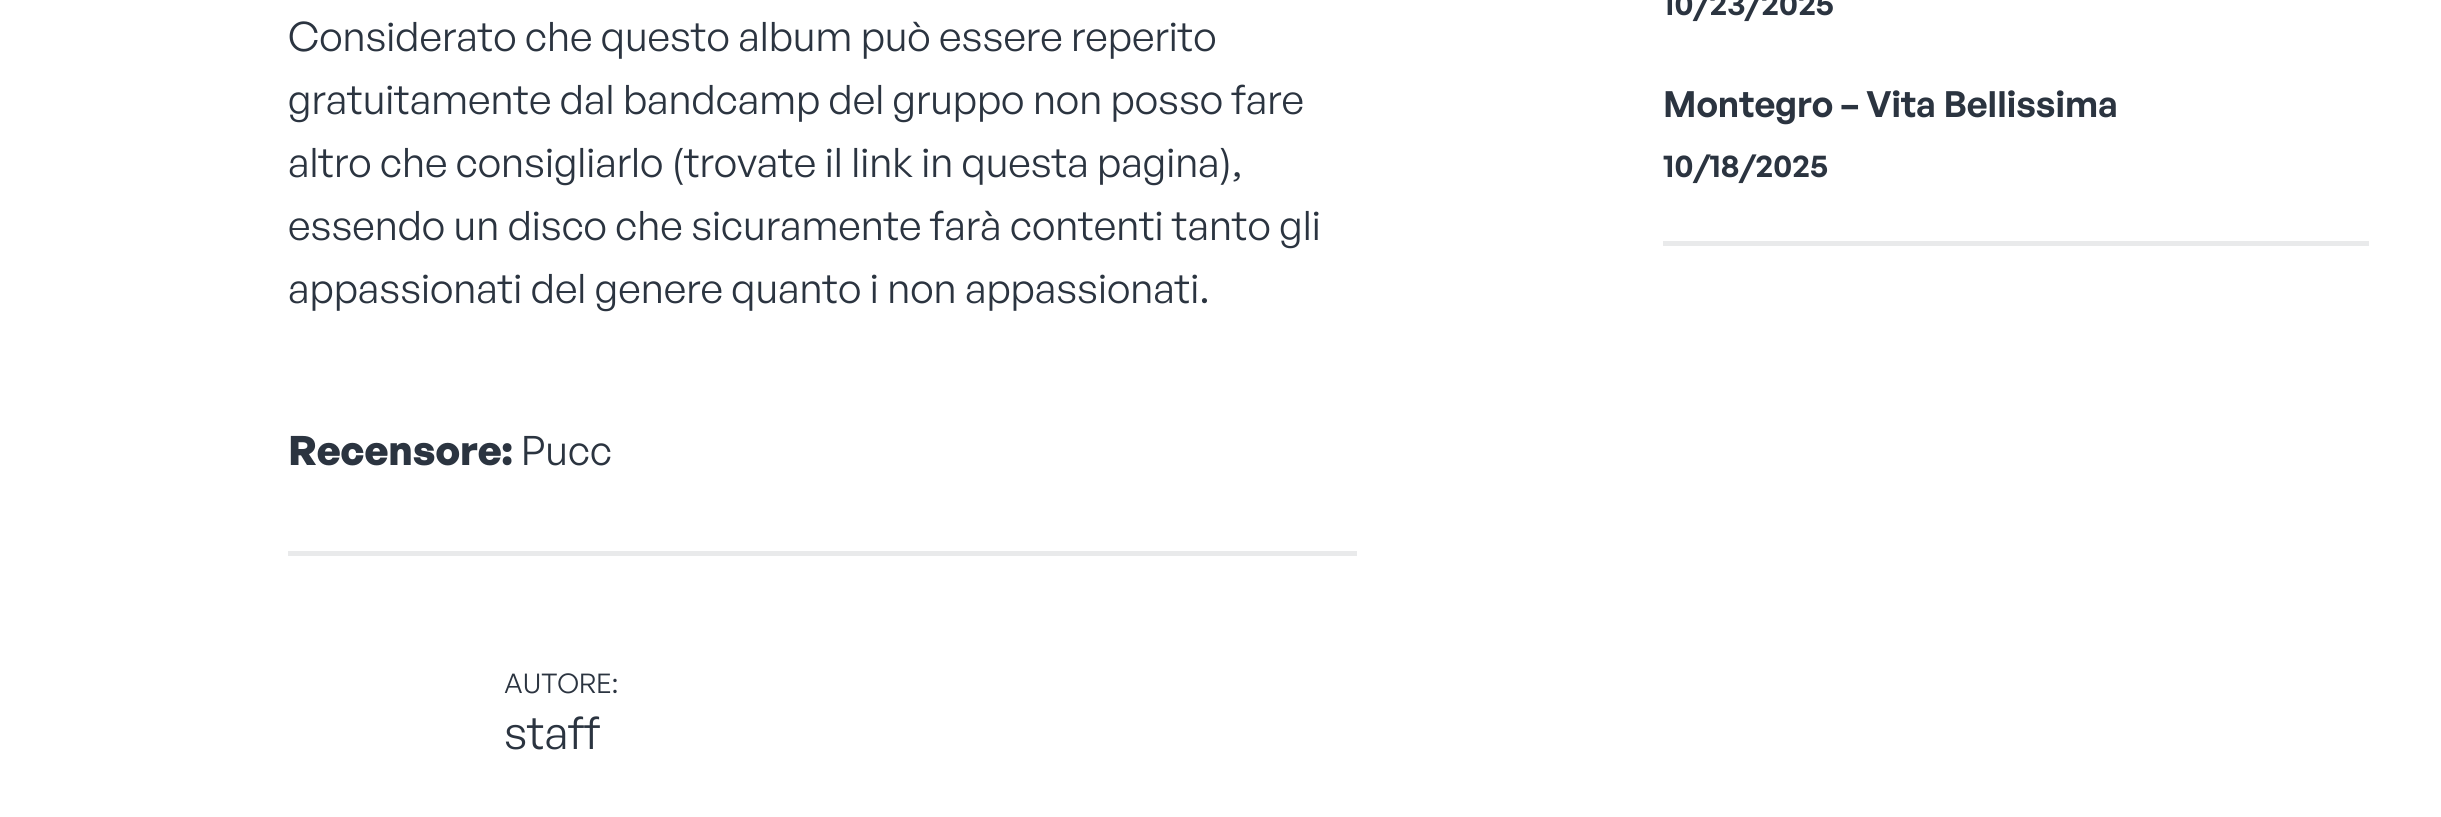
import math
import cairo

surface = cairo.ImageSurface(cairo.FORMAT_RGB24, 2441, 817)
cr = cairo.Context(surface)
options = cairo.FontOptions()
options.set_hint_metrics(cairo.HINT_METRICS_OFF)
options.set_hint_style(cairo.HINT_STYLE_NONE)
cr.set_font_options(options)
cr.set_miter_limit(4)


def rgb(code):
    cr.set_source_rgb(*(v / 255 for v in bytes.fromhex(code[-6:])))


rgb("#ffffff")
cr.paint()
rgb("#e9eaeb")
cr.rectangle(288, 551, 1069, 5)
cr.fill()
cr.rectangle(1663, 241, 706, 5)
cr.fill()
cr.select_font_face("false")
cr.set_font_size(40.5)
rgb("#2b3440")
for x, y, s in [
    (288, 51, "Considerato che questo album può essere reperito"),
    (288, 114, "gratuitamente dal bandcamp del gruppo non posso fare"),
    (288, 177, "altro che consigliarlo (trovate il link in questa pagina),"),
    (288, 240, "essendo un disco che sicuramente farà contenti tanto gli"),
    (288, 303, "appassionati del genere quanto i non appassionati."),
]:
    cr.move_to(x, y)
    cr.show_text(s)
cr.select_font_face("false", cairo.FONT_SLANT_NORMAL, cairo.FONT_WEIGHT_BOLD)
cr.move_to(288, 465)
cr.show_text("Recensore:")
cr.select_font_face("false")
cr.move_to(521, 465)
cr.show_text("Pucc")
cr.set_font_size(27)
cr.move_to(504, 693)
cr.show_text("AUTORE:")
cr.set_font_size(45)
cr.move_to(504, 749)
cr.show_text("staff")
cr.select_font_face("General Sans SemiBold")
cr.set_font_size(31.5)
cr.move_to(1663, 15)
cr.show_text("10/23/2025")
cr.set_font_size(36)
cr.move_to(1663, 117)
cr.show_text("Montegro – Vita Bellissima")
cr.set_font_size(31.5)
cr.move_to(1663, 177)
cr.show_text("10/18/2025")
surface.write_to_png("page.png")
